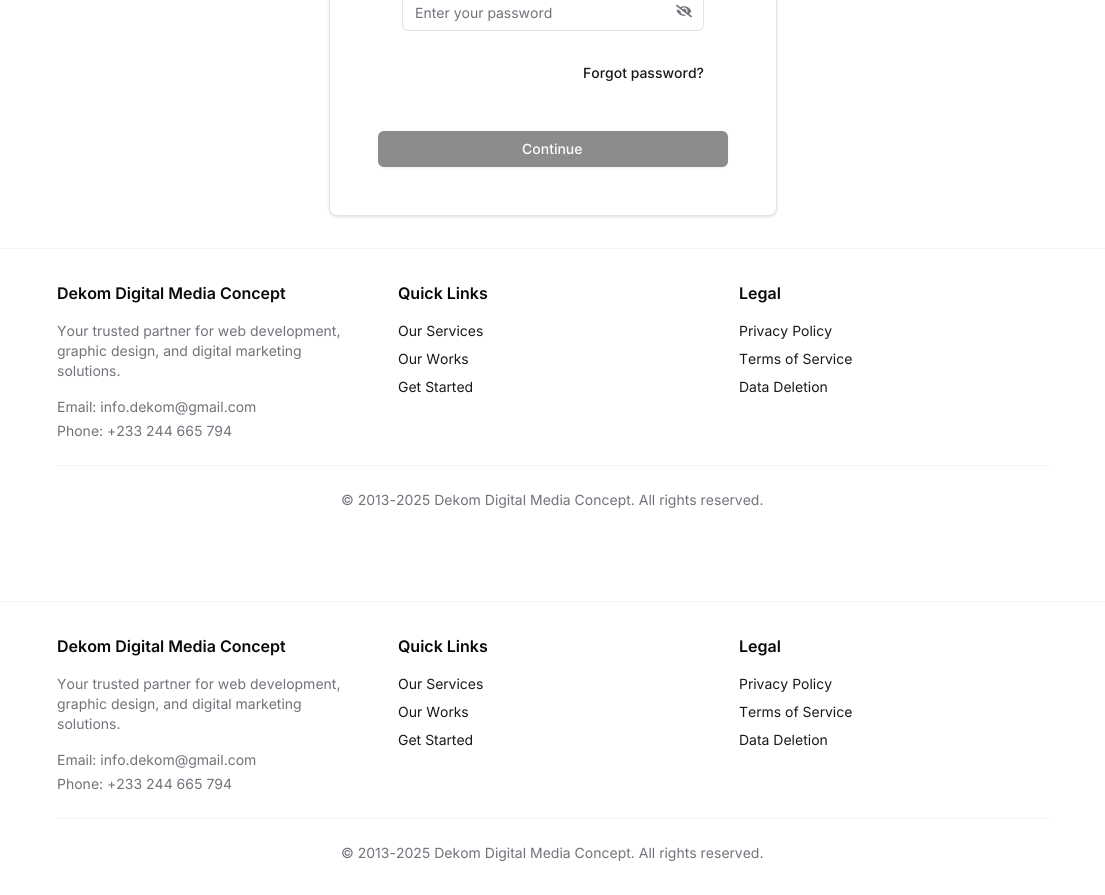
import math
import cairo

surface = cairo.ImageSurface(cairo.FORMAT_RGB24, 1105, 895)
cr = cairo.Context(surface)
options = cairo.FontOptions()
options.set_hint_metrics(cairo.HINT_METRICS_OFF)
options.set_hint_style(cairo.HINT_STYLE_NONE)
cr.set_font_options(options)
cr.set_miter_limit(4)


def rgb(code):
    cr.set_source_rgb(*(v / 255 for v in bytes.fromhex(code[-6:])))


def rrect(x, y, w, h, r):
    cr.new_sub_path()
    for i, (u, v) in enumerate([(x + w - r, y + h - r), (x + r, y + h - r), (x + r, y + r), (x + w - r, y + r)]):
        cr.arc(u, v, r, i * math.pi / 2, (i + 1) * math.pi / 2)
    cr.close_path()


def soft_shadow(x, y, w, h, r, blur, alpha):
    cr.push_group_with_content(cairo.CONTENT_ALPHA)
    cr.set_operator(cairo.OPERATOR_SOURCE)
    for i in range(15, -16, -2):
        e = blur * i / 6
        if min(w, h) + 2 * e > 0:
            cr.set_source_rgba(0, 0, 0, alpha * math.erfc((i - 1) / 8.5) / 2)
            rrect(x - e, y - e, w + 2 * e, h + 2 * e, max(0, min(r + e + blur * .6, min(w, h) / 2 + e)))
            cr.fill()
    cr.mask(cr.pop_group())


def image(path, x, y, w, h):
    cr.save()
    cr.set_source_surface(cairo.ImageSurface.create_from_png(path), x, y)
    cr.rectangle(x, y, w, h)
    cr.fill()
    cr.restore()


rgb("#ffffff")
cr.paint()
rgb("#000000")
soft_shadow(330, -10, 446, 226, 7, 1, 0.1)
soft_shadow(329, -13, 448, 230, 8, 1.5, 0.1)
rgb("#ffffff")
rrect(329.5, -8.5, 447, 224, 7.5)
cr.fill_preserve()
rgb("#e4e4e7")
cr.set_line_width(1)
cr.stroke()
rrect(402.5, -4.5, 301, 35, 5.5)
cr.stroke()
image("img/1.png", 676, 4, 16, 14)
rgb("#808080")
soft_shadow(379, 133, 348, 34, 5, 1, 0.1)
soft_shadow(378, 132, 350, 36, 6, 1.5, 0.1)
rgb("#8c8c8d")
rrect(378, 131, 350, 36, 6)
cr.fill()
for x, y, w, h, color in [
    (0, 248, 1105, 1, "#f4f4f5"),
    (57, 465, 992, 1, "#f4f4f5"),
    (0, 601, 1105, 1, "#f4f4f5"),
    (57, 818, 992, 1, "#f4f4f5"),
]:
    rgb(color)
    cr.rectangle(x, y, w, h)
    cr.fill()
cr.select_font_face("Inter")
cr.set_font_size(14)
rgb("#71717a")
cr.move_to(415, 18)
cr.show_text("Enter your password")
cr.select_font_face("Inter Medium")
rgb("#18181b")
cr.move_to(583, 78)
cr.show_text("Forgot password?")
rgb("#fdfdfd")
cr.move_to(522, 154)
cr.show_text("Continue")
cr.select_font_face("Inter SemiBold")
cr.set_font_size(16)
rgb("#09090b")
cr.move_to(57, 299)
cr.show_text("Dekom Digital Media Concept")
cr.select_font_face("Inter")
cr.set_font_size(14)
rgb("#71717a")
for x, y, s in [
    (57, 336, "Your trusted partner for web development,"),
    (57, 356, "graphic design, and digital marketing"),
    (57, 376, "solutions."),
    (57, 412, "Email: info.dekom@gmail.com"),
    (57, 436, "Phone: +233 244 665 794"),
]:
    cr.move_to(x, y)
    cr.show_text(s)
cr.select_font_face("Inter SemiBold")
cr.set_font_size(16)
rgb("#09090b")
cr.move_to(398, 299)
cr.show_text("Quick Links")
cr.select_font_face("Inter")
cr.set_font_size(14)
rgb("#18181b")
for x, y, s in [
    (398, 336, "Our Services"),
    (398, 364, "Our Works"),
    (398, 392, "Get Started"),
]:
    cr.move_to(x, y)
    cr.show_text(s)
cr.select_font_face("Inter SemiBold")
cr.set_font_size(16)
rgb("#09090b")
cr.move_to(739, 299)
cr.show_text("Legal")
cr.select_font_face("Inter")
cr.set_font_size(14)
rgb("#18181b")
for x, y, s in [
    (739, 336, "Privacy Policy"),
    (739, 364, "Terms of Service"),
    (739, 392, "Data Deletion"),
]:
    cr.move_to(x, y)
    cr.show_text(s)
rgb("#71717a")
cr.move_to(341, 505)
cr.show_text("© 2013-2025 Dekom Digital Media Concept. All rights reserved.")
cr.select_font_face("Inter SemiBold")
cr.set_font_size(16)
rgb("#09090b")
cr.move_to(57, 652)
cr.show_text("Dekom Digital Media Concept")
cr.select_font_face("Inter")
cr.set_font_size(14)
rgb("#71717a")
for x, y, s in [
    (57, 689, "Your trusted partner for web development,"),
    (57, 709, "graphic design, and digital marketing"),
    (57, 729, "solutions."),
    (57, 765, "Email: info.dekom@gmail.com"),
    (57, 789, "Phone: +233 244 665 794"),
]:
    cr.move_to(x, y)
    cr.show_text(s)
cr.select_font_face("Inter SemiBold")
cr.set_font_size(16)
rgb("#09090b")
cr.move_to(398, 652)
cr.show_text("Quick Links")
cr.select_font_face("Inter")
cr.set_font_size(14)
rgb("#18181b")
for x, y, s in [
    (398, 689, "Our Services"),
    (398, 717, "Our Works"),
    (398, 745, "Get Started"),
]:
    cr.move_to(x, y)
    cr.show_text(s)
cr.select_font_face("Inter SemiBold")
cr.set_font_size(16)
rgb("#09090b")
cr.move_to(739, 652)
cr.show_text("Legal")
cr.select_font_face("Inter")
cr.set_font_size(14)
rgb("#18181b")
for x, y, s in [
    (739, 689, "Privacy Policy"),
    (739, 717, "Terms of Service"),
    (739, 745, "Data Deletion"),
]:
    cr.move_to(x, y)
    cr.show_text(s)
rgb("#71717a")
cr.move_to(341, 858)
cr.show_text("© 2013-2025 Dekom Digital Media Concept. All rights reserved.")
surface.write_to_png("page.png")
